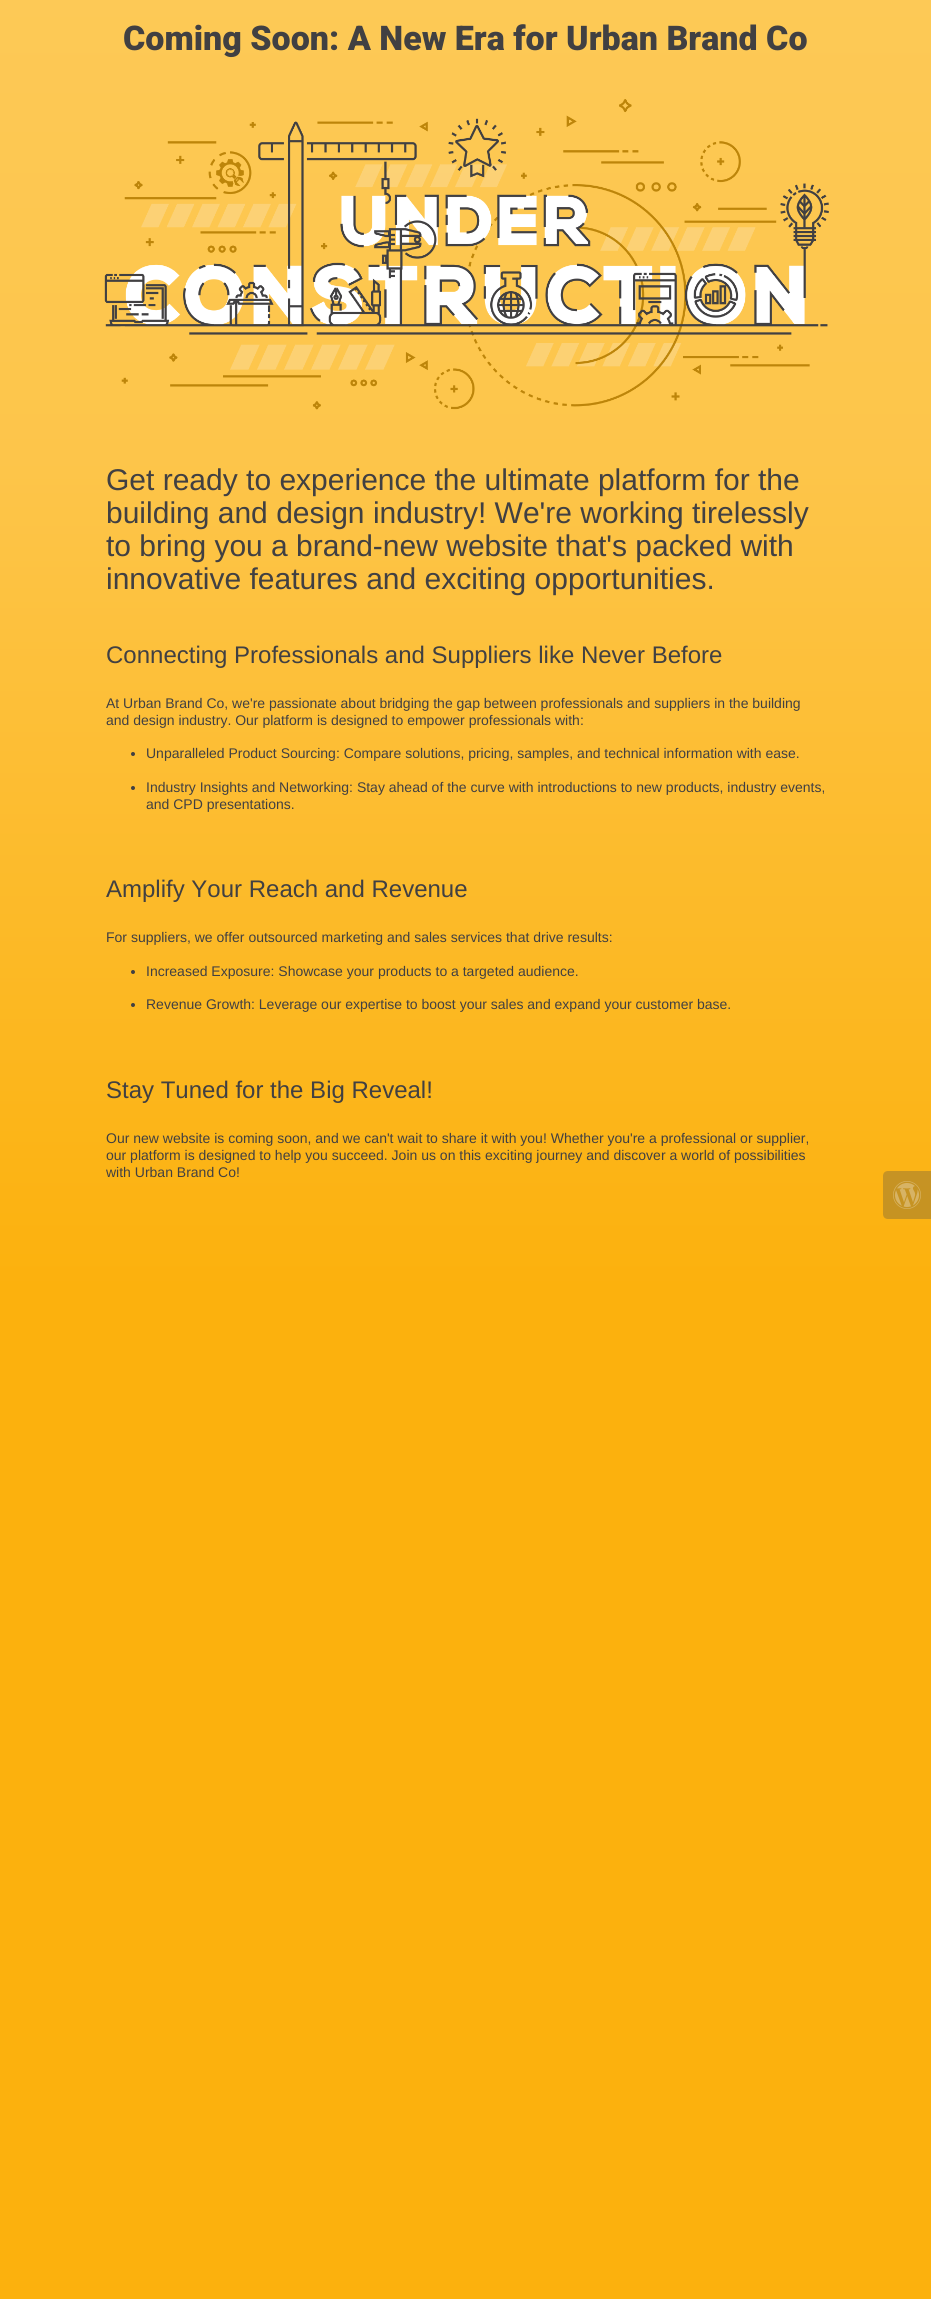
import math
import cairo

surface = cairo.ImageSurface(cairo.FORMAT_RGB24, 931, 2299)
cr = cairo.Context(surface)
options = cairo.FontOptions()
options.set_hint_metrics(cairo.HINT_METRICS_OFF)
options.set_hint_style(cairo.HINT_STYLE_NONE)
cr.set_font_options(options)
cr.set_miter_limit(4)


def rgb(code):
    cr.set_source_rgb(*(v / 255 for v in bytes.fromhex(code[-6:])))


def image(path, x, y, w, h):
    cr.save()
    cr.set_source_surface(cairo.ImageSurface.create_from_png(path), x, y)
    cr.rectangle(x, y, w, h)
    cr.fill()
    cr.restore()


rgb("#ffffff")
cr.paint()
gradient = cairo.LinearGradient(466, 2299, 466, 0)
gradient.add_color_stop_rgba(0, 0.988, 0.694, 0.051, 1)
gradient.add_color_stop_rgba(0.44, 0.988, 0.694, 0.051, 1)
gradient.add_color_stop_rgba(0.8, 0.992, 0.773, 0.29, 1)
gradient.add_color_stop_rgba(1, 0.992, 0.788, 0.337, 1)
cr.set_source(gradient)
cr.rectangle(0, 0, 931, 2299)
cr.fill()
image("img/1.png", 104, 99, 725, 311)
rgb("#414042")
cr.arc(133, 754, 2, 0, 2 * math.pi)
cr.fill()
cr.arc(133, 788, 2, 0, 2 * math.pi)
cr.fill()
cr.arc(133, 972, 2, 0, 2 * math.pi)
cr.fill()
cr.arc(133, 1005, 2, 0, 2 * math.pi)
cr.fill()
cr.set_source_rgba(0.275, 0.275, 0.275, 0.3)
cr.new_path()
cr.move_to(888, 1171)
cr.line_to(931, 1171)
cr.line_to(931, 1219)
cr.line_to(888, 1219)
cr.curve_to(885, 1219, 883, 1217, 883, 1214)
cr.line_to(883, 1176)
cr.curve_to(883, 1173, 885, 1171, 888, 1171)
cr.close_path()
cr.fill()
image("img/2.png", 893, 1181, 28, 28)
cr.select_font_face("Roboto Black")
cr.set_font_size(34)
rgb("#414042")
cr.move_to(123, 50)
cr.show_text("Coming Soon: A New Era for Urban Brand Co")
cr.select_font_face("Liberation Sans")
cr.set_font_size(30)
for x, y, s in [
    (106, 490, "Get ready to experience the ultimate platform for the"),
    (106, 523, "building and design industry! We're working tirelessly"),
    (106, 556, "to bring you a brand-new website that's packed with"),
    (106, 589, "innovative features and exciting opportunities."),
]:
    cr.move_to(x, y)
    cr.show_text(s)
cr.set_font_size(24)
cr.move_to(106, 663)
cr.show_text("Connecting Professionals and Suppliers like Never Before")
cr.set_font_size(14)
for x, y, s in [
    (106, 708, "At Urban Brand Co, we're passionate about bridging the gap between professionals and suppliers in the building"),
    (106, 725, "and design industry. Our platform is designed to empower professionals with:"),
    (146, 758, "Unparalleled Product Sourcing: Compare solutions, pricing, samples, and technical information with ease."),
    (146, 792, "Industry Insights and Networking: Stay ahead of the curve with introductions to new products, industry events,"),
    (146, 809, "and CPD presentations."),
]:
    cr.move_to(x, y)
    cr.show_text(s)
cr.set_font_size(24)
cr.move_to(106, 897)
cr.show_text("Amplify Your Reach and Revenue")
cr.set_font_size(14)
for x, y, s in [
    (106, 942, "For suppliers, we offer outsourced marketing and sales services that drive results:"),
    (146, 976, "Increased Exposure: Showcase your products to a targeted audience."),
    (146, 1009, "Revenue Growth: Leverage our expertise to boost your sales and expand your customer base."),
]:
    cr.move_to(x, y)
    cr.show_text(s)
cr.set_font_size(24)
cr.move_to(106, 1098)
cr.show_text("Stay Tuned for the Big Reveal!")
cr.set_font_size(14)
for x, y, s in [
    (106, 1143, "Our new website is coming soon, and we can't wait to share it with you! Whether you're a professional or supplier,"),
    (106, 1160, "our platform is designed to help you succeed. Join us on this exciting journey and discover a world of possibilities"),
    (106, 1177, "with Urban Brand Co!"),
]:
    cr.move_to(x, y)
    cr.show_text(s)
surface.write_to_png("page.png")
